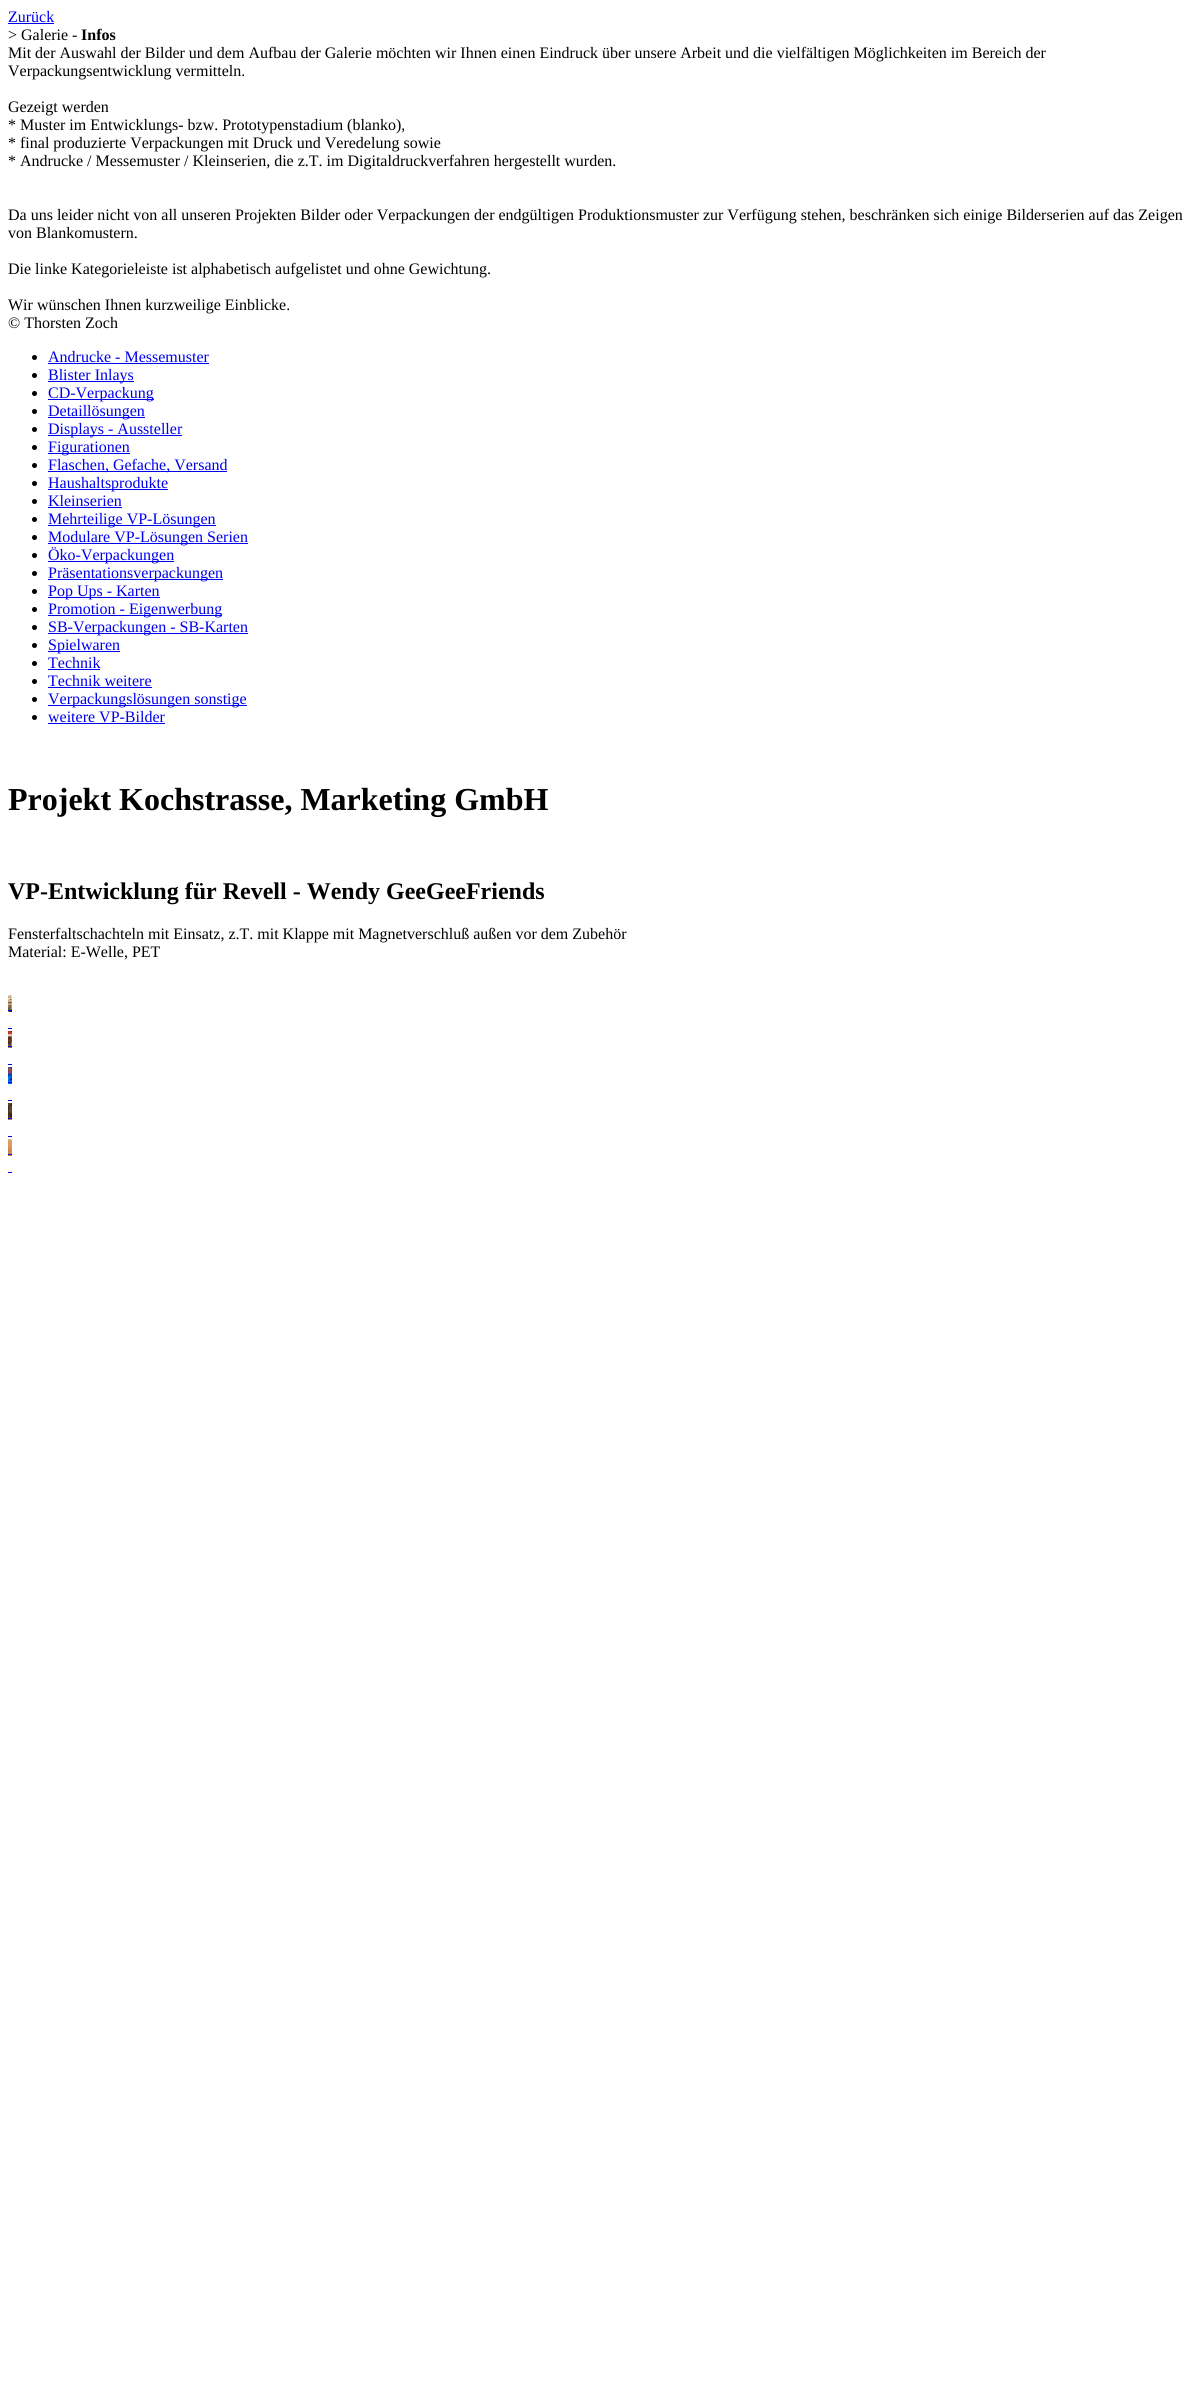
import math
import cairocffi as cairo

surface = cairo.ImageSurface(cairo.FORMAT_RGB24, 1193, 2406)
cr = cairo.Context(surface)
options = cairo.FontOptions()
options.set_hint_metrics(cairo.HINT_METRICS_OFF)
options.set_hint_style(cairo.HINT_STYLE_NONE)
cr.set_font_options(options)
cr.set_miter_limit(4)


def use_color(code):
    cr.set_source_rgb(*(v / 255 for v in bytes.fromhex(code[-6:])))


def picture(path, x, y, w, h):
    cr.save()
    cr.set_source_surface(cairo.ImageSurface.create_from_png(path), x, y)
    cr.rectangle(x, y, w, h)
    cr.fill()
    cr.restore()


use_color("#ffffff")
cr.paint()
cr.select_font_face("Liberation Serif")
cr.set_font_size(16)
use_color("#0000ee")
cr.move_to(8, 22)
cr.show_text("Zurück")
cr.rectangle(8, 23, 46, 1)
cr.fill()
use_color("#000000")
cr.move_to(8, 40)
cr.show_text("> Galerie -")
cr.select_font_face("Liberation Serif", cairo.FONT_SLANT_NORMAL, cairo.FONT_WEIGHT_BOLD)
cr.move_to(81, 40)
cr.show_text("Infos")
cr.select_font_face("Liberation Serif")
cr.move_to(8, 58)
cr.show_text("Mit der Auswahl der Bilder und dem Aufbau der Galerie möchten wir Ihnen einen Eindruck über unsere Arbeit und die vielfältigen Möglichkeiten im Bereich der")
cr.move_to(8, 76)
cr.show_text("Verpackungsentwicklung vermitteln.")
cr.move_to(8, 112)
cr.show_text("Gezeigt werden")
cr.move_to(8, 130)
cr.show_text("* Muster im Entwicklungs- bzw. Prototypenstadium (blanko),")
cr.move_to(8, 148)
cr.show_text("* final produzierte Verpackungen mit Druck und Veredelung sowie")
cr.move_to(8, 166)
cr.show_text("* Andrucke / Messemuster / Kleinserien, die z.T. im Digitaldruckverfahren hergestellt wurden.")
cr.move_to(8, 220)
cr.show_text("Da uns leider nicht von all unseren Projekten Bilder oder Verpackungen der endgültigen Produktionsmuster zur Verfügung stehen, beschränken sich einige Bilderserien auf das Zeigen")
cr.move_to(8, 238)
cr.show_text("von Blankomustern.")
cr.move_to(8, 274)
cr.show_text("Die linke Kategorieleiste ist alphabetisch aufgelistet und ohne Gewichtung.")
cr.move_to(8, 310)
cr.show_text("Wir wünschen Ihnen kurzweilige Einblicke.")
cr.move_to(8, 328)
cr.show_text("© Thorsten Zoch")
cr.new_path()
cr.arc(34.5, 357.5, 2.5, 0, 2 * math.pi)
cr.fill()
use_color("#0000ee")
cr.move_to(48, 362)
cr.show_text("Andrucke - Messemuster")
cr.rectangle(48, 363, 161, 1)
cr.fill()
use_color("#000000")
cr.arc(34.5, 375.5, 2.5, 0, 2 * math.pi)
cr.fill()
use_color("#0000ee")
cr.rectangle(48, 381, 86, 1)
cr.fill()
cr.move_to(48, 380)
cr.show_text("Blister Inlays")
use_color("#000000")
cr.new_path()
cr.arc(34.5, 393.5, 2.5, 0, 2 * math.pi)
cr.fill()
use_color("#0000ee")
cr.rectangle(48, 399, 106, 1)
cr.fill()
cr.move_to(48, 398)
cr.show_text("CD-Verpackung")
use_color("#000000")
cr.new_path()
cr.arc(34.5, 411.5, 2.5, 0, 2 * math.pi)
cr.fill()
use_color("#0000ee")
cr.rectangle(48, 417, 97, 1)
cr.fill()
cr.move_to(48, 416)
cr.show_text("Detaillösungen")
use_color("#000000")
cr.new_path()
cr.arc(34.5, 429.5, 2.5, 0, 2 * math.pi)
cr.fill()
use_color("#0000ee")
cr.rectangle(48, 435, 134, 1)
cr.fill()
cr.move_to(48, 434)
cr.show_text("Displays - Aussteller")
use_color("#000000")
cr.new_path()
cr.arc(34.5, 447.5, 2.5, 0, 2 * math.pi)
cr.fill()
use_color("#0000ee")
cr.rectangle(48, 453, 82, 1)
cr.fill()
cr.move_to(48, 452)
cr.show_text("Figurationen")
use_color("#000000")
cr.new_path()
cr.arc(34.5, 465.5, 2.5, 0, 2 * math.pi)
cr.fill()
use_color("#0000ee")
cr.rectangle(48, 471, 179, 1)
cr.fill()
cr.move_to(48, 470)
cr.show_text("Flaschen, Gefache, Versand")
use_color("#000000")
cr.new_path()
cr.arc(34.5, 483.5, 2.5, 0, 2 * math.pi)
cr.fill()
use_color("#0000ee")
cr.rectangle(48, 489, 120, 1)
cr.fill()
cr.move_to(48, 488)
cr.show_text("Haushaltsprodukte")
use_color("#000000")
cr.new_path()
cr.arc(34.5, 501.5, 2.5, 0, 2 * math.pi)
cr.fill()
use_color("#0000ee")
cr.move_to(48, 506)
cr.show_text("Kleinserien")
cr.rectangle(48, 507, 74, 1)
cr.fill()
use_color("#000000")
cr.arc(34.5, 519.5, 2.5, 0, 2 * math.pi)
cr.fill()
use_color("#0000ee")
cr.rectangle(48, 525, 168, 1)
cr.fill()
cr.move_to(48, 524)
cr.show_text("Mehrteilige VP-Lösungen")
use_color("#000000")
cr.new_path()
cr.arc(34.5, 537.5, 2.5, 0, 2 * math.pi)
cr.fill()
use_color("#0000ee")
cr.rectangle(48, 543, 200, 1)
cr.fill()
cr.move_to(48, 542)
cr.show_text("Modulare VP-Lösungen Serien")
use_color("#000000")
cr.new_path()
cr.arc(34.5, 555.5, 2.5, 0, 2 * math.pi)
cr.fill()
use_color("#0000ee")
cr.rectangle(48, 561, 126, 1)
cr.fill()
cr.move_to(48, 560)
cr.show_text("Öko-Verpackungen")
use_color("#000000")
cr.new_path()
cr.arc(34.5, 573.5, 2.5, 0, 2 * math.pi)
cr.fill()
use_color("#0000ee")
cr.rectangle(48, 579, 175, 1)
cr.fill()
cr.move_to(48, 578)
cr.show_text("Präsentationsverpackungen")
use_color("#000000")
cr.new_path()
cr.arc(34.5, 591.5, 2.5, 0, 2 * math.pi)
cr.fill()
use_color("#0000ee")
cr.rectangle(48, 597, 112, 1)
cr.fill()
cr.move_to(48, 596)
cr.show_text("Pop Ups - Karten")
use_color("#000000")
cr.new_path()
cr.arc(34.5, 609.5, 2.5, 0, 2 * math.pi)
cr.fill()
use_color("#0000ee")
cr.rectangle(48, 615, 174, 1)
cr.fill()
cr.move_to(48, 614)
cr.show_text("Promotion - Eigenwerbung")
use_color("#000000")
cr.new_path()
cr.arc(34.5, 627.5, 2.5, 0, 2 * math.pi)
cr.fill()
use_color("#0000ee")
cr.rectangle(48, 633, 200, 1)
cr.fill()
cr.move_to(48, 632)
cr.show_text("SB-Verpackungen - SB-Karten")
use_color("#000000")
cr.new_path()
cr.arc(34.5, 645.5, 2.5, 0, 2 * math.pi)
cr.fill()
use_color("#0000ee")
cr.rectangle(48, 651, 72, 1)
cr.fill()
cr.move_to(48, 650)
cr.show_text("Spielwaren")
use_color("#000000")
cr.new_path()
cr.arc(34.5, 663.5, 2.5, 0, 2 * math.pi)
cr.fill()
use_color("#0000ee")
cr.move_to(48, 668)
cr.show_text("Technik")
cr.rectangle(48, 669, 52, 1)
cr.fill()
use_color("#000000")
cr.arc(34.5, 681.5, 2.5, 0, 2 * math.pi)
cr.fill()
use_color("#0000ee")
cr.move_to(48, 686)
cr.show_text("Technik weitere")
cr.rectangle(48, 687, 104, 1)
cr.fill()
use_color("#000000")
cr.arc(34.5, 699.5, 2.5, 0, 2 * math.pi)
cr.fill()
use_color("#0000ee")
cr.rectangle(48, 705, 199, 1)
cr.fill()
cr.move_to(48, 704)
cr.show_text("Verpackungslösungen sonstige")
use_color("#000000")
cr.new_path()
cr.arc(34.5, 717.5, 2.5, 0, 2 * math.pi)
cr.fill()
use_color("#0000ee")
cr.move_to(48, 722)
cr.show_text("weitere VP-Bilder")
cr.rectangle(48, 723, 117, 1)
cr.fill()
cr.select_font_face("Liberation Serif", cairo.FONT_SLANT_NORMAL, cairo.FONT_WEIGHT_BOLD)
cr.set_font_size(32)
use_color("#000000")
cr.move_to(8, 810)
cr.show_text("Projekt Kochstrasse, Marketing GmbH")
cr.set_font_size(24)
cr.move_to(8, 899)
cr.show_text("VP-Entwicklung für Revell - Wendy GeeGeeFriends")
cr.select_font_face("Liberation Serif")
cr.set_font_size(16)
cr.move_to(8, 939)
cr.show_text("Fensterfaltschachteln mit Einsatz, z.T. mit Klappe mit Magnetverschluß außen vor dem Zubehör")
cr.move_to(8, 957)
cr.show_text("Material: E-Welle, PET")
picture("img1.png", 8, 995, 4, 17)
use_color("#0000ee")
cr.rectangle(8, 1010, 4, 1)
cr.fill()
cr.rectangle(8, 1028, 4, 1)
cr.fill()
picture("img2.png", 8, 1031, 4, 17)
cr.rectangle(8, 1046, 4, 1)
cr.fill()
cr.rectangle(8, 1064, 4, 1)
cr.fill()
picture("img3.png", 8, 1067, 4, 17)
cr.rectangle(8, 1082, 4, 1)
cr.fill()
cr.rectangle(8, 1100, 4, 1)
cr.fill()
picture("img4.png", 8, 1103, 4, 17)
cr.rectangle(8, 1118, 4, 1)
cr.fill()
cr.rectangle(8, 1136, 4, 1)
cr.fill()
picture("img5.png", 8, 1139, 4, 17)
cr.rectangle(8, 1154, 4, 1)
cr.fill()
cr.rectangle(8, 1172, 4, 1)
cr.fill()
surface.write_to_png("result.png")
